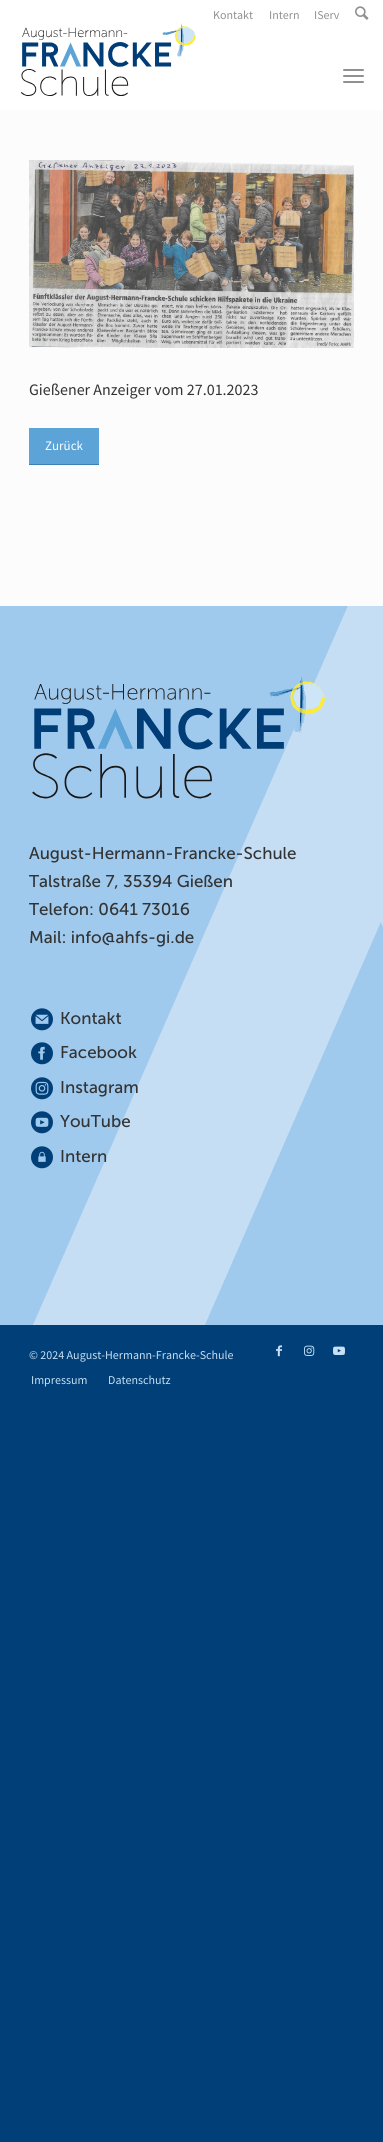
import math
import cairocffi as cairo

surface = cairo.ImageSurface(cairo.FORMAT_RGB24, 383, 2142)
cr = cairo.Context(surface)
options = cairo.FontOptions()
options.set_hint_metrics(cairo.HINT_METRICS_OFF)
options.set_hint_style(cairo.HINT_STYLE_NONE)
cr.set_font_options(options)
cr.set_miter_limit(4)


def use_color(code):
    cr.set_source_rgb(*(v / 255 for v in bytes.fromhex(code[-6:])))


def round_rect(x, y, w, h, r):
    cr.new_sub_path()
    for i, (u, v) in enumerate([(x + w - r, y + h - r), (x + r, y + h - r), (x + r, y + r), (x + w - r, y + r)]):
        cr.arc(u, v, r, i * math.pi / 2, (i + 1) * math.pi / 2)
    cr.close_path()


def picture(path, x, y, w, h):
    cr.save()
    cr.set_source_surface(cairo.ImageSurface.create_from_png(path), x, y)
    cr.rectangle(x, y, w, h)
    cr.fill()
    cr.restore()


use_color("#003f77")
cr.paint()
use_color("#ffffff")
cr.rectangle(0, 0, 383, 110)
cr.fill()
cr.select_font_face("Source Sans Pro")
cr.set_font_size(12)
use_color("#919191")
cr.move_to(213, 19)
cr.show_text("Kontakt")
cr.move_to(269, 19)
cr.show_text("Intern")
cr.move_to(314, 19)
cr.show_text("IServ")
picture("img1.png", 355, 6, 14, 14)
picture("img2.png", 20, 23, 176, 73)
round_rect(343, 75, 21, 2, 1)
cr.fill()
round_rect(343, 69, 21, 2, 1)
cr.fill()
round_rect(343, 81, 21, 2, 1)
cr.fill()
use_color("#fcfcfc")
cr.rectangle(0, 110, 383, 496)
cr.fill()
picture("img3.png", 29, 160, 325, 188)
cr.set_font_size(16)
use_color("#333333")
cr.move_to(29, 395)
cr.show_text("Gießener Anzeiger vom 27.01.2023")
use_color("#5ca4d7")
cr.rectangle(29, 428, 70, 36)
cr.fill()
use_color("#3a82b5")
cr.rectangle(29, 464, 70, 1)
cr.fill()
cr.set_font_size(13)
use_color("#ffffff")
cr.move_to(45, 450)
cr.show_text("Zurück")
use_color("#9fc9ed")
cr.rectangle(0, 606, 383, 719)
cr.fill()
picture("img4.png", 33, 606, 350, 719)
picture("img5.png", 32, 677, 293, 122)
cr.select_font_face("Museo Sans")
cr.set_font_size(17)
use_color("#333333")
cr.move_to(29, 859)
cr.show_text("August-Hermann-Francke-Schule")
cr.move_to(29, 887)
cr.show_text("Talstraße 7, 35394 Gießen")
cr.move_to(29, 915)
cr.show_text("Telefon: 0641 73016")
cr.move_to(29, 943)
cr.show_text("Mail: info@ahfs-gi.de")
picture("img6.png", 31, 1008, 22, 23)
cr.move_to(60, 1024)
cr.show_text("Kontakt")
picture("img7.png", 31, 1042, 22, 23)
cr.move_to(60, 1058)
cr.show_text("Facebook")
picture("img8.png", 31, 1077, 22, 23)
cr.move_to(60, 1093)
cr.show_text("Instagram")
picture("img9.png", 31, 1111, 22, 23)
cr.move_to(60, 1127)
cr.show_text("YouTube")
picture("img10.png", 31, 1146, 22, 23)
cr.move_to(60, 1162)
cr.show_text("Intern")
cr.select_font_face("Source Sans Pro")
cr.set_font_size(12)
use_color("#c7e0f5")
cr.move_to(29, 1359)
cr.show_text("© 2024 August-Hermann-Francke-Schule")
picture("img11.png", 276, 1345, 6, 12)
picture("img12.png", 304, 1345, 11, 11)
picture("img13.png", 333, 1346, 12, 9)
cr.move_to(31, 1384)
cr.show_text("Impressum")
cr.move_to(108, 1384)
cr.show_text("Datenschutz")
surface.write_to_png("result.png")
